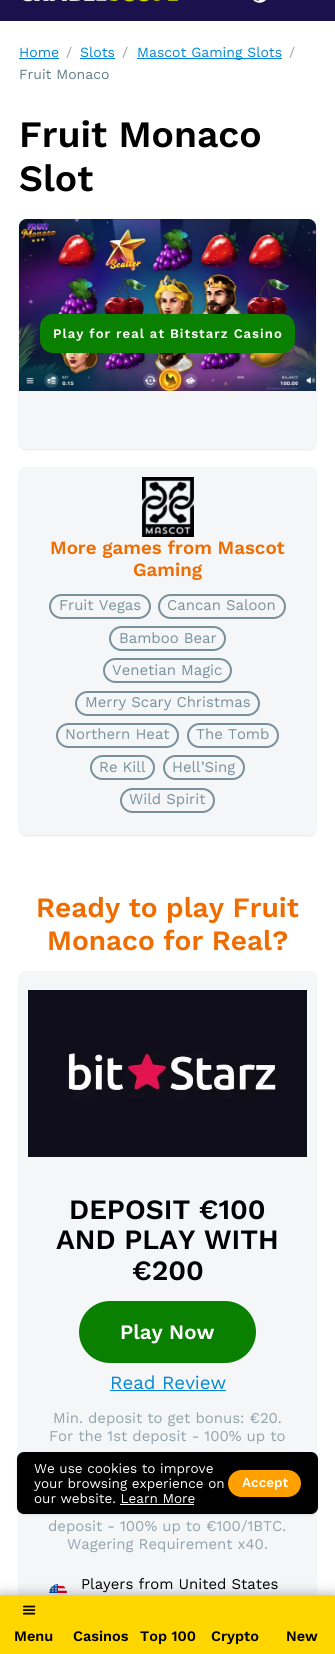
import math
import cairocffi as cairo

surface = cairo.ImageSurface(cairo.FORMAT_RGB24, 335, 1654)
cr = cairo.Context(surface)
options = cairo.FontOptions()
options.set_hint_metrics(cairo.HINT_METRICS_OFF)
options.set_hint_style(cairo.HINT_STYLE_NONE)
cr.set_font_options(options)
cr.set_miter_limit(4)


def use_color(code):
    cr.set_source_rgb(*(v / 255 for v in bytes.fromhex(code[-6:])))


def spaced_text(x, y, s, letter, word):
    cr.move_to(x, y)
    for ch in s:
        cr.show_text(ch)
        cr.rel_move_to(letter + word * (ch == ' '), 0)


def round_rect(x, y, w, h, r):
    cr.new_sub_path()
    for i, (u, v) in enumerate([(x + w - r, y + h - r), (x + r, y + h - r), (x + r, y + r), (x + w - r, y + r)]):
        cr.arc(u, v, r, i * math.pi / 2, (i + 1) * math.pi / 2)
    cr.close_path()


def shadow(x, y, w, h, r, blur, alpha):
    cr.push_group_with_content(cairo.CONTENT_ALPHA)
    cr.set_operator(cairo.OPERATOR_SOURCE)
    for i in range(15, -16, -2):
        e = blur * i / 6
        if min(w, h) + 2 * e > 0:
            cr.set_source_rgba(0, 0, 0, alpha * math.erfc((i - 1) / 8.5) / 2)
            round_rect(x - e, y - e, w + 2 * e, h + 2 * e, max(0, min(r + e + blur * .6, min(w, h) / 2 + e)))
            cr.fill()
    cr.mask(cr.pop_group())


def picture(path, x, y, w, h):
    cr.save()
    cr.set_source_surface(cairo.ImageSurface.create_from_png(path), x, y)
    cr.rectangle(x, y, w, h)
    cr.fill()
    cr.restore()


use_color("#ffffff")
cr.paint()
cr.select_font_face("Work Sans")
cr.set_font_size(14)
use_color("#0288d1")
cr.move_to(19, 57)
cr.show_text("Home")
cr.rectangle(19, 58, 40, 1)
cr.fill()
use_color("#9e9e9e")
cr.move_to(66, 57)
cr.show_text("/")
use_color("#0288d1")
cr.move_to(80, 57)
cr.show_text("Slots")
cr.rectangle(80, 58, 35, 1)
cr.fill()
use_color("#9e9e9e")
cr.move_to(122, 57)
cr.show_text("/")
use_color("#0288d1")
cr.rectangle(137, 58, 145, 1)
cr.fill()
cr.move_to(137, 57)
cr.show_text("Mascot Gaming Slots")
use_color("#9e9e9e")
cr.move_to(289, 57)
cr.show_text("/")
use_color("#607d8b")
cr.move_to(19, 79)
cr.show_text("Fruit Monaco")
cr.select_font_face("Work Sans SemiBold")
cr.set_font_size(37.25)
use_color("#000000")
cr.move_to(19, 147)
cr.show_text("Fruit Monaco")
cr.move_to(19, 191)
cr.show_text("Slot")
use_color("#000000")
shadow(19, 220, 297, 230, 7, 1, 0.1)
use_color("#f5f6f8")
round_rect(19, 219, 297, 230, 7)
cr.fill()
picture("img1.png", 19, 219, 297, 172)
use_color("#0a8001")
round_rect(40, 314, 255, 39, 13)
cr.fill()
cr.set_font_size(13.1)
use_color("#ffffff")
spaced_text(53, 338, "Play for real at Bitstarz Casino", 1, 0)
use_color("#000000")
shadow(19, 468, 297, 368, 7, 1, 0.1)
use_color("#f5f6f8")
round_rect(19, 467, 297, 368, 7)
cr.fill()
picture("img2.png", 142, 477, 52, 60)
cr.set_font_size(18.7)
use_color("#ef6c00")
cr.move_to(50, 554)
cr.show_text("More games from Mascot")
cr.move_to(133, 576)
cr.show_text("Gaming")
round_rect(50, 595, 100, 23, 11.5)
use_color("#78909c")
cr.stroke()
cr.select_font_face("Work Sans")
cr.set_font_size(14.9)
cr.move_to(59, 610)
cr.show_text("Fruit Vegas")
round_rect(159, 595, 126, 23, 11.5)
cr.stroke()
cr.move_to(167, 610)
cr.show_text("Cancan Saloon")
round_rect(110, 627, 115, 23, 11.5)
cr.stroke()
cr.move_to(119, 643)
cr.show_text("Bamboo Bear")
round_rect(104, 659, 127, 23, 11.5)
cr.stroke()
cr.move_to(112, 675)
cr.show_text("Venetian Magic")
round_rect(76, 692, 183, 23, 11.5)
cr.stroke()
cr.move_to(85, 707)
cr.show_text("Merry Scary Christmas")
round_rect(57, 724, 121, 23, 11.5)
cr.stroke()
cr.move_to(65, 739)
cr.show_text("Northern Heat")
round_rect(188, 724, 90, 23, 11.5)
cr.stroke()
cr.move_to(196, 739)
cr.show_text("The Tomb")
round_rect(91, 756, 63, 23, 11.5)
cr.stroke()
cr.move_to(99, 772)
cr.show_text("Re Kill")
round_rect(164, 756, 80, 23, 11.5)
cr.stroke()
cr.move_to(172, 772)
cr.show_text("Hell’Sing")
round_rect(121, 789, 93, 23, 11.5)
cr.stroke()
cr.move_to(129, 804)
cr.show_text("Wild Spirit")
cr.select_font_face("Work Sans SemiBold")
cr.set_font_size(28)
use_color("#ef6c00")
cr.move_to(36, 917)
cr.show_text("Ready to play Fruit")
cr.move_to(47, 950)
cr.show_text("Monaco for Real?")
use_color("#000000")
shadow(19, 972, 297, 655, 7, 1, 0.1)
use_color("#f5f6f8")
round_rect(19, 971, 297, 655, 7)
cr.fill()
picture("img3.png", 28, 990, 279, 167)
use_color("#000000")
cr.move_to(69, 1219)
cr.show_text("DEPOSIT €100")
cr.move_to(56, 1249)
cr.show_text("AND PLAY WITH")
cr.move_to(132, 1280)
cr.show_text("€200")
use_color("#0a8001")
round_rect(79, 1301, 177, 62, 31)
cr.fill()
cr.set_font_size(20.5)
use_color("#ffffff")
cr.move_to(120, 1339)
cr.show_text("Play Now")
cr.select_font_face("Work Sans")
cr.set_font_size(18.7)
use_color("#0288d1")
cr.move_to(110, 1389)
cr.show_text("Read Review")
cr.rectangle(110, 1390, 116, 1)
cr.fill()
cr.set_font_size(14.9)
use_color("#90a4ae")
cr.move_to(53, 1423)
cr.show_text("Min. deposit to get bonus: €20.")
cr.move_to(49, 1441)
cr.show_text("For the 1st deposit - 100% up to")
cr.move_to(48, 1531)
cr.show_text("deposit - 100% up to €100/1BTC.")
cr.move_to(67, 1549)
cr.show_text("Wagering Requirement x40.")
picture("img4.png", 49, 1584, 18, 11)
use_color("#000000")
cr.move_to(81, 1589)
cr.show_text("Players from United States")
use_color("#000000")
shadow(17, 1453, 301, 62, 7, 1, 0.1)
use_color("#000000")
round_rect(17, 1452, 301, 62, 7)
cr.fill()
cr.set_font_size(13.5)
use_color("#ffffff")
cr.move_to(34, 1473)
cr.show_text("We use cookies to improve")
cr.move_to(34, 1488)
cr.show_text("your browsing experience on")
cr.move_to(34, 1503)
cr.show_text("our website. Learn More")
cr.rectangle(120, 1504, 74, 1)
cr.fill()
use_color("#ffa000")
round_rect(228, 1470, 73, 27, 13.5)
cr.fill()
cr.select_font_face("Work Sans SemiBold")
use_color("#ffffff")
cr.move_to(242, 1487)
cr.show_text("Accept")
use_color("#1b114d")
cr.rectangle(0, 0, 335, 21)
cr.fill()
picture("img5.png", 23, 0, 155, 2)
picture("img6.png", 253, 0, 13, 3)
use_color("#000000")
shadow(0, 1592, 335, 59, 0, 5, 0.2)
use_color("#ffd600")
cr.rectangle(0, 1595, 335, 59)
cr.fill()
picture("img7.png", 22, 1605, 14, 10)
cr.set_font_size(14.5)
use_color("#000000")
cr.move_to(14, 1641)
cr.show_text("Menu")
cr.move_to(73, 1641)
cr.show_text("Casinos")
cr.move_to(140, 1641)
cr.show_text("Top 100")
cr.move_to(211, 1641)
cr.show_text("Crypto")
cr.move_to(286, 1641)
cr.show_text("New")
surface.write_to_png("result.png")
